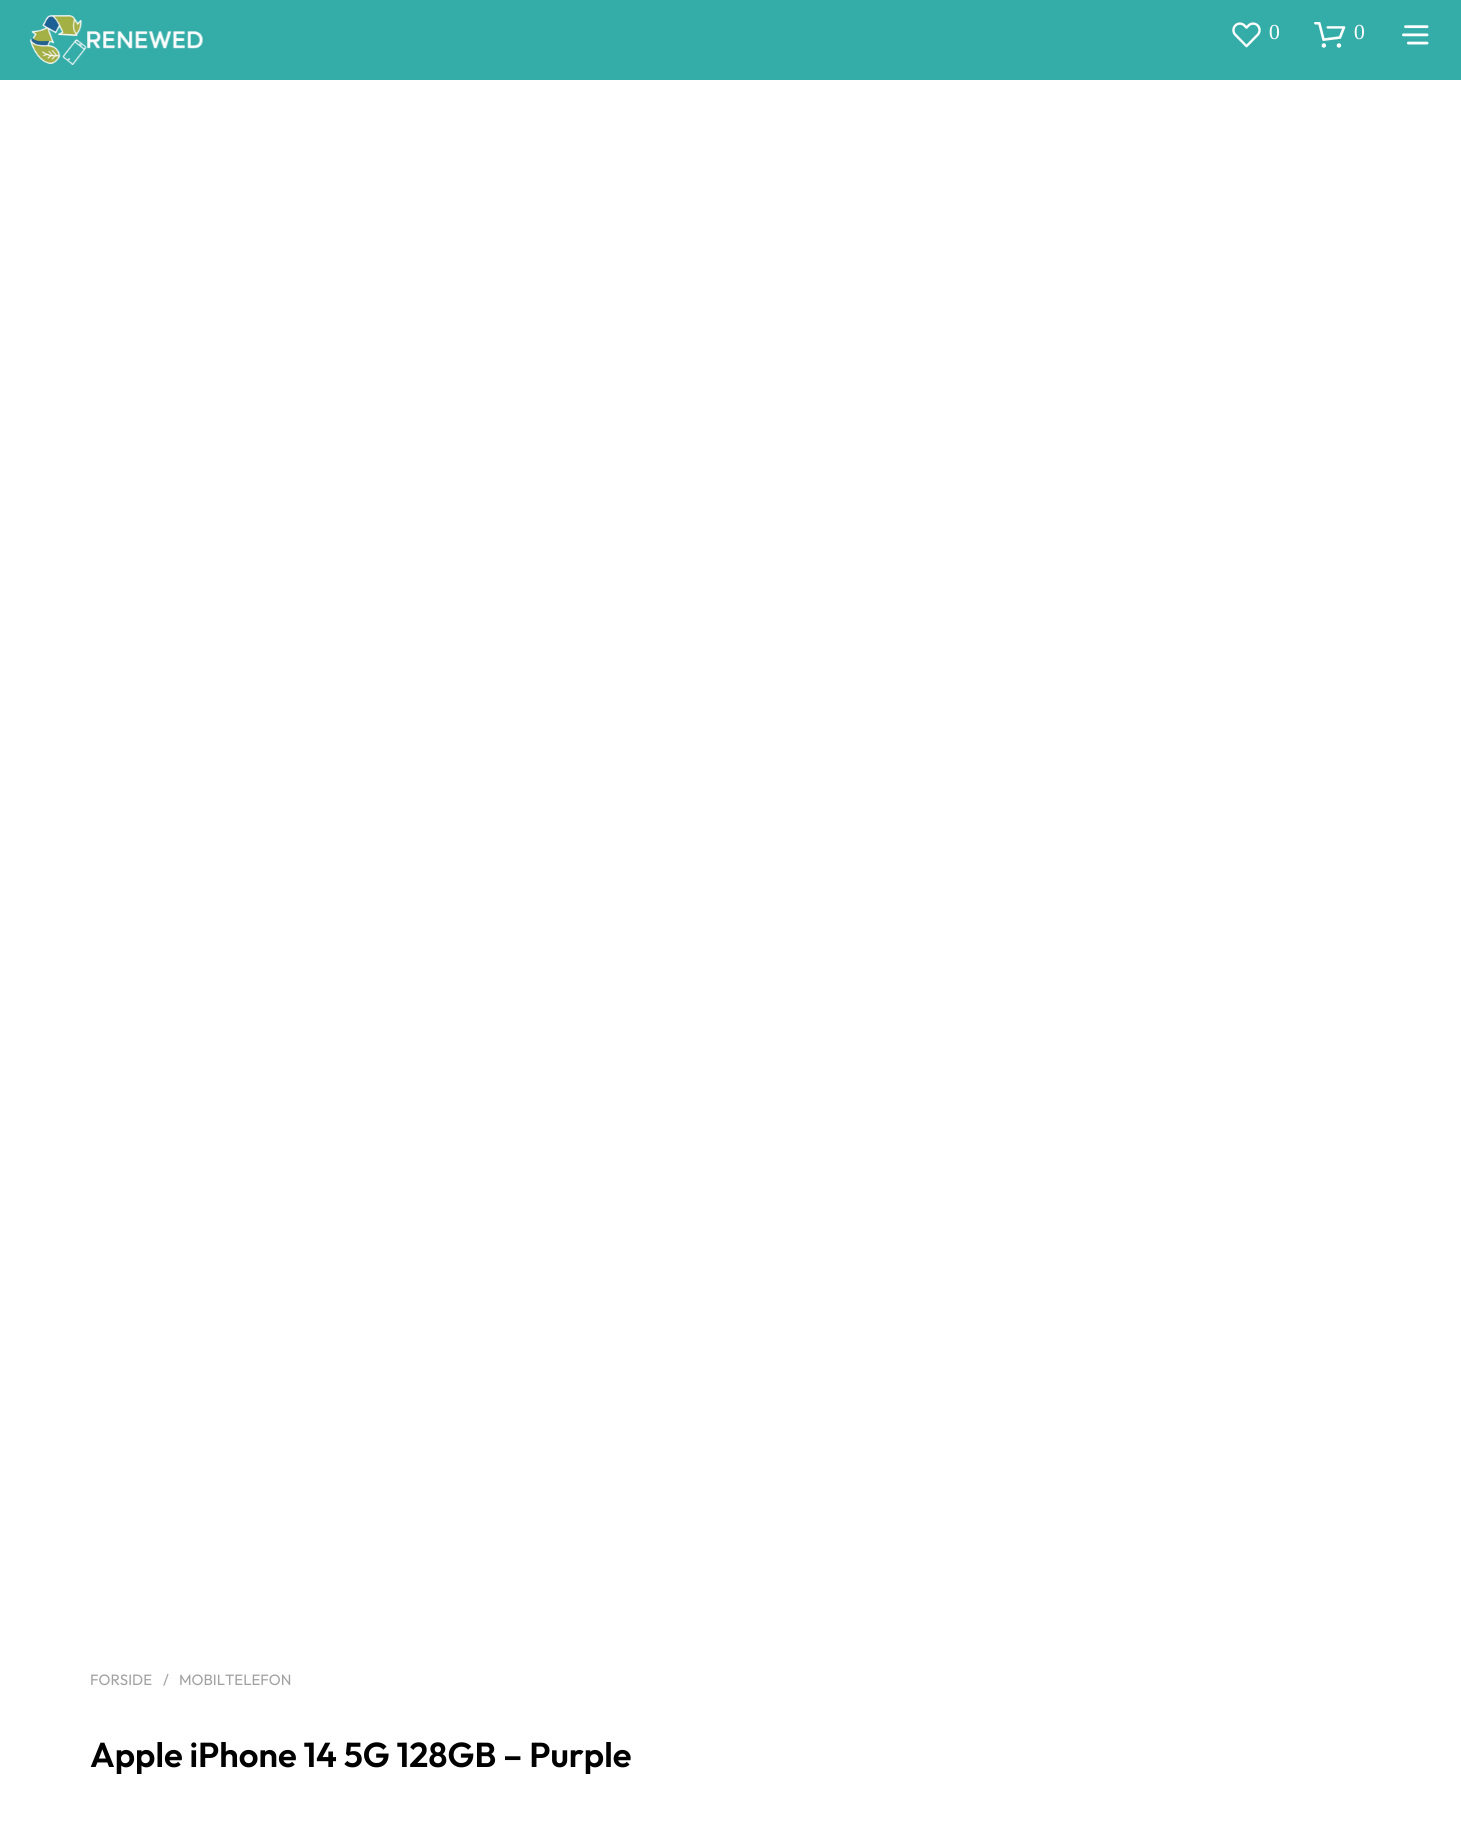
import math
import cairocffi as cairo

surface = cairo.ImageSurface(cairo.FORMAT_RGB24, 1461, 1841)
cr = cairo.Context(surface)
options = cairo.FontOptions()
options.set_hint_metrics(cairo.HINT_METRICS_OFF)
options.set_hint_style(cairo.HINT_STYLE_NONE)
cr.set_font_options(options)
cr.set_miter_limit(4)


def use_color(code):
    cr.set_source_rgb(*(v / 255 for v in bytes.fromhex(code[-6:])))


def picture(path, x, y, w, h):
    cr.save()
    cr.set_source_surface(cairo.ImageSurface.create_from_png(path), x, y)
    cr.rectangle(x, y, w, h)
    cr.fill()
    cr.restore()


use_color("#ffffff")
cr.paint()
use_color("#34ada9")
cr.rectangle(0, 0, 1461, 80)
cr.fill()
picture("img1.png", 30, 15, 173, 50)
picture("img2.png", 1232, 22, 29, 26)
cr.select_font_face("PT Serif")
cr.set_font_size(20)
use_color("#fefefe")
cr.move_to(1269, 39)
cr.show_text("0")
picture("img3.png", 1314, 22, 32, 26)
cr.move_to(1354, 39)
cr.show_text("0")
picture("img4.png", 1402, 25, 27, 20)
cr.select_font_face("Outfit")
cr.set_font_size(15)
use_color("#a1a1a1")
cr.move_to(90, 1685)
cr.show_text("FORSIDE")
cr.move_to(163, 1685)
cr.show_text("/")
cr.move_to(179, 1685)
cr.show_text("MOBILTELEFON")
cr.select_font_face("Outfit SemiBold")
cr.set_font_size(34.6)
use_color("#000000")
cr.move_to(90, 1767)
cr.show_text("Apple iPhone 14 5G 128GB – Purple")
surface.write_to_png("result.png")
